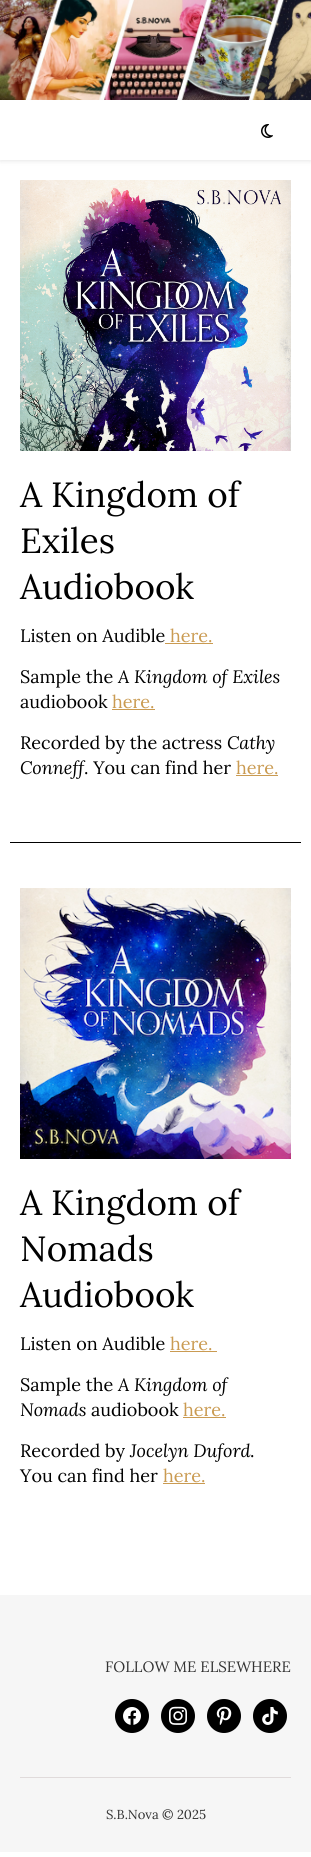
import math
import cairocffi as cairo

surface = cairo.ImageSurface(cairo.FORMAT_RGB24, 311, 1857)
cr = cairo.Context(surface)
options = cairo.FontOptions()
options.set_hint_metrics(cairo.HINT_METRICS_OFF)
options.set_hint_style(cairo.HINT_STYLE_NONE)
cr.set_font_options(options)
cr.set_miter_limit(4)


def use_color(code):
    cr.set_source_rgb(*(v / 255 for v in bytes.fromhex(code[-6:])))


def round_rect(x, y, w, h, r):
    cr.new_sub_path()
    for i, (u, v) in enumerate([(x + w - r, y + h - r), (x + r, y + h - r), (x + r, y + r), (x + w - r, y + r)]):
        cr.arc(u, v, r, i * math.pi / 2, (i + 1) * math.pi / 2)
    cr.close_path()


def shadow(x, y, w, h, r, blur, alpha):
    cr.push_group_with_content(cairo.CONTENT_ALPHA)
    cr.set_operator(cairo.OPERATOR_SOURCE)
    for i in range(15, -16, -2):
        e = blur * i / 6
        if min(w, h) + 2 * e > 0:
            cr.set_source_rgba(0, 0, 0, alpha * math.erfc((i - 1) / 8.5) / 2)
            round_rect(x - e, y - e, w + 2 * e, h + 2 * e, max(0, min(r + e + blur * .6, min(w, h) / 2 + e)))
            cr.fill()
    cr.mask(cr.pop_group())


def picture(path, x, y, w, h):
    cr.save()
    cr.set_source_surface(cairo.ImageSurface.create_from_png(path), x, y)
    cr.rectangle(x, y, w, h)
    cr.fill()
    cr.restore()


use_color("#ffffff")
cr.paint()
picture("img1.png", 0, 0, 311, 100)
cr.save()
cr.set_fill_rule(cairo.FILL_RULE_EVEN_ODD)
cr.new_path()
cr.move_to(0, 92)
cr.line_to(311, 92)
cr.line_to(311, 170)
cr.line_to(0, 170)
cr.close_path()
cr.move_to(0, 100)
cr.line_to(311, 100)
cr.line_to(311, 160)
cr.line_to(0, 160)
cr.close_path()
cr.clip()
use_color("#000000")
shadow(0, 101, 311, 60, 0, 2.5, 0.1)
cr.restore()
picture("img2.png", 261, 124, 12, 14)
picture("img3.png", 20, 180, 271, 271)
cr.select_font_face("Lora")
cr.set_font_size(35)
use_color("#000000")
cr.move_to(20, 507)
cr.show_text("A Kingdom of")
cr.move_to(20, 553)
cr.show_text("Exiles")
cr.move_to(20, 599)
cr.show_text("Audiobook")
cr.set_font_size(18)
cr.move_to(20, 642)
cr.show_text("Listen on Audible")
use_color("#ca9b52")
cr.rectangle(165, 643, 48, 1)
cr.fill()
cr.move_to(170, 642)
cr.show_text("here.")
use_color("#000000")
cr.move_to(20, 683)
cr.show_text("Sample the")
cr.select_font_face("Lora", cairo.FONT_SLANT_ITALIC)
cr.move_to(118, 683)
cr.show_text("A Kingdom of Exiles")
cr.select_font_face("Lora")
cr.move_to(20, 708)
cr.show_text("audiobook")
use_color("#ca9b52")
cr.move_to(112, 708)
cr.show_text("here.")
cr.rectangle(112, 709, 43, 1)
cr.fill()
use_color("#000000")
cr.move_to(20, 749)
cr.show_text("Recorded by the actress")
cr.select_font_face("Lora", cairo.FONT_SLANT_ITALIC)
cr.move_to(227, 749)
cr.show_text("Cathy")
cr.move_to(20, 774)
cr.show_text("Conneff")
cr.select_font_face("Lora")
cr.move_to(84, 774)
cr.show_text(". You can find her")
use_color("#ca9b52")
cr.move_to(236, 774)
cr.show_text("here.")
cr.rectangle(236, 775, 42, 1)
cr.fill()
use_color("#000000")
cr.rectangle(10, 842, 291, 1)
cr.fill()
picture("img4.png", 20, 888, 271, 271)
cr.set_font_size(35)
cr.move_to(20, 1215)
cr.show_text("A Kingdom of")
cr.move_to(20, 1261)
cr.show_text("Nomads")
cr.move_to(20, 1307)
cr.show_text("Audiobook")
cr.set_font_size(18)
cr.move_to(20, 1350)
cr.show_text("Listen on Audible")
use_color("#ca9b52")
cr.move_to(170, 1350)
cr.show_text("here.")
cr.rectangle(170, 1351, 47, 1)
cr.fill()
use_color("#000000")
cr.move_to(20, 1391)
cr.show_text("Sample the")
cr.select_font_face("Lora", cairo.FONT_SLANT_ITALIC)
cr.move_to(118, 1391)
cr.show_text("A Kingdom of")
cr.move_to(20, 1416)
cr.show_text("Nomads")
cr.select_font_face("Lora")
cr.move_to(91, 1416)
cr.show_text("audiobook")
use_color("#ca9b52")
cr.move_to(183, 1416)
cr.show_text("here.")
cr.rectangle(183, 1417, 43, 1)
cr.fill()
use_color("#000000")
cr.move_to(20, 1457)
cr.show_text("Recorded by")
cr.select_font_face("Lora", cairo.FONT_SLANT_ITALIC)
cr.move_to(130, 1457)
cr.show_text("Jocelyn Duford")
cr.select_font_face("Lora")
cr.move_to(250, 1457)
cr.show_text(".")
cr.move_to(20, 1482)
cr.show_text("You can find her")
use_color("#ca9b52")
cr.move_to(163, 1482)
cr.show_text("here.")
cr.rectangle(163, 1483, 42, 1)
cr.fill()
use_color("#f6f6f6")
cr.rectangle(0, 1595, 311, 257)
cr.fill()
use_color("#e0dbdb")
cr.rectangle(20, 1777, 271, 1)
cr.fill()
cr.set_font_size(15)
use_color("#333333")
cr.move_to(105, 1672)
cr.show_text("FOLLOW ME ELSEWHERE")
use_color("#000000")
cr.new_path()
cr.arc(132, 1716, 17, 0, 2 * math.pi)
cr.fill()
picture("img5.png", 123, 1707, 18, 18)
cr.arc(178, 1716, 17, 0, 2 * math.pi)
cr.fill()
picture("img6.png", 169, 1706, 18, 19)
cr.arc(224, 1716, 17, 0, 2 * math.pi)
cr.fill()
picture("img7.png", 216, 1706, 16, 19)
cr.arc(270, 1716, 17, 0, 2 * math.pi)
cr.fill()
picture("img8.png", 262, 1707, 16, 18)
cr.set_font_size(13)
use_color("#333333")
cr.move_to(106, 1819)
cr.show_text("S.B.Nova © 2025")
surface.write_to_png("result.png")
